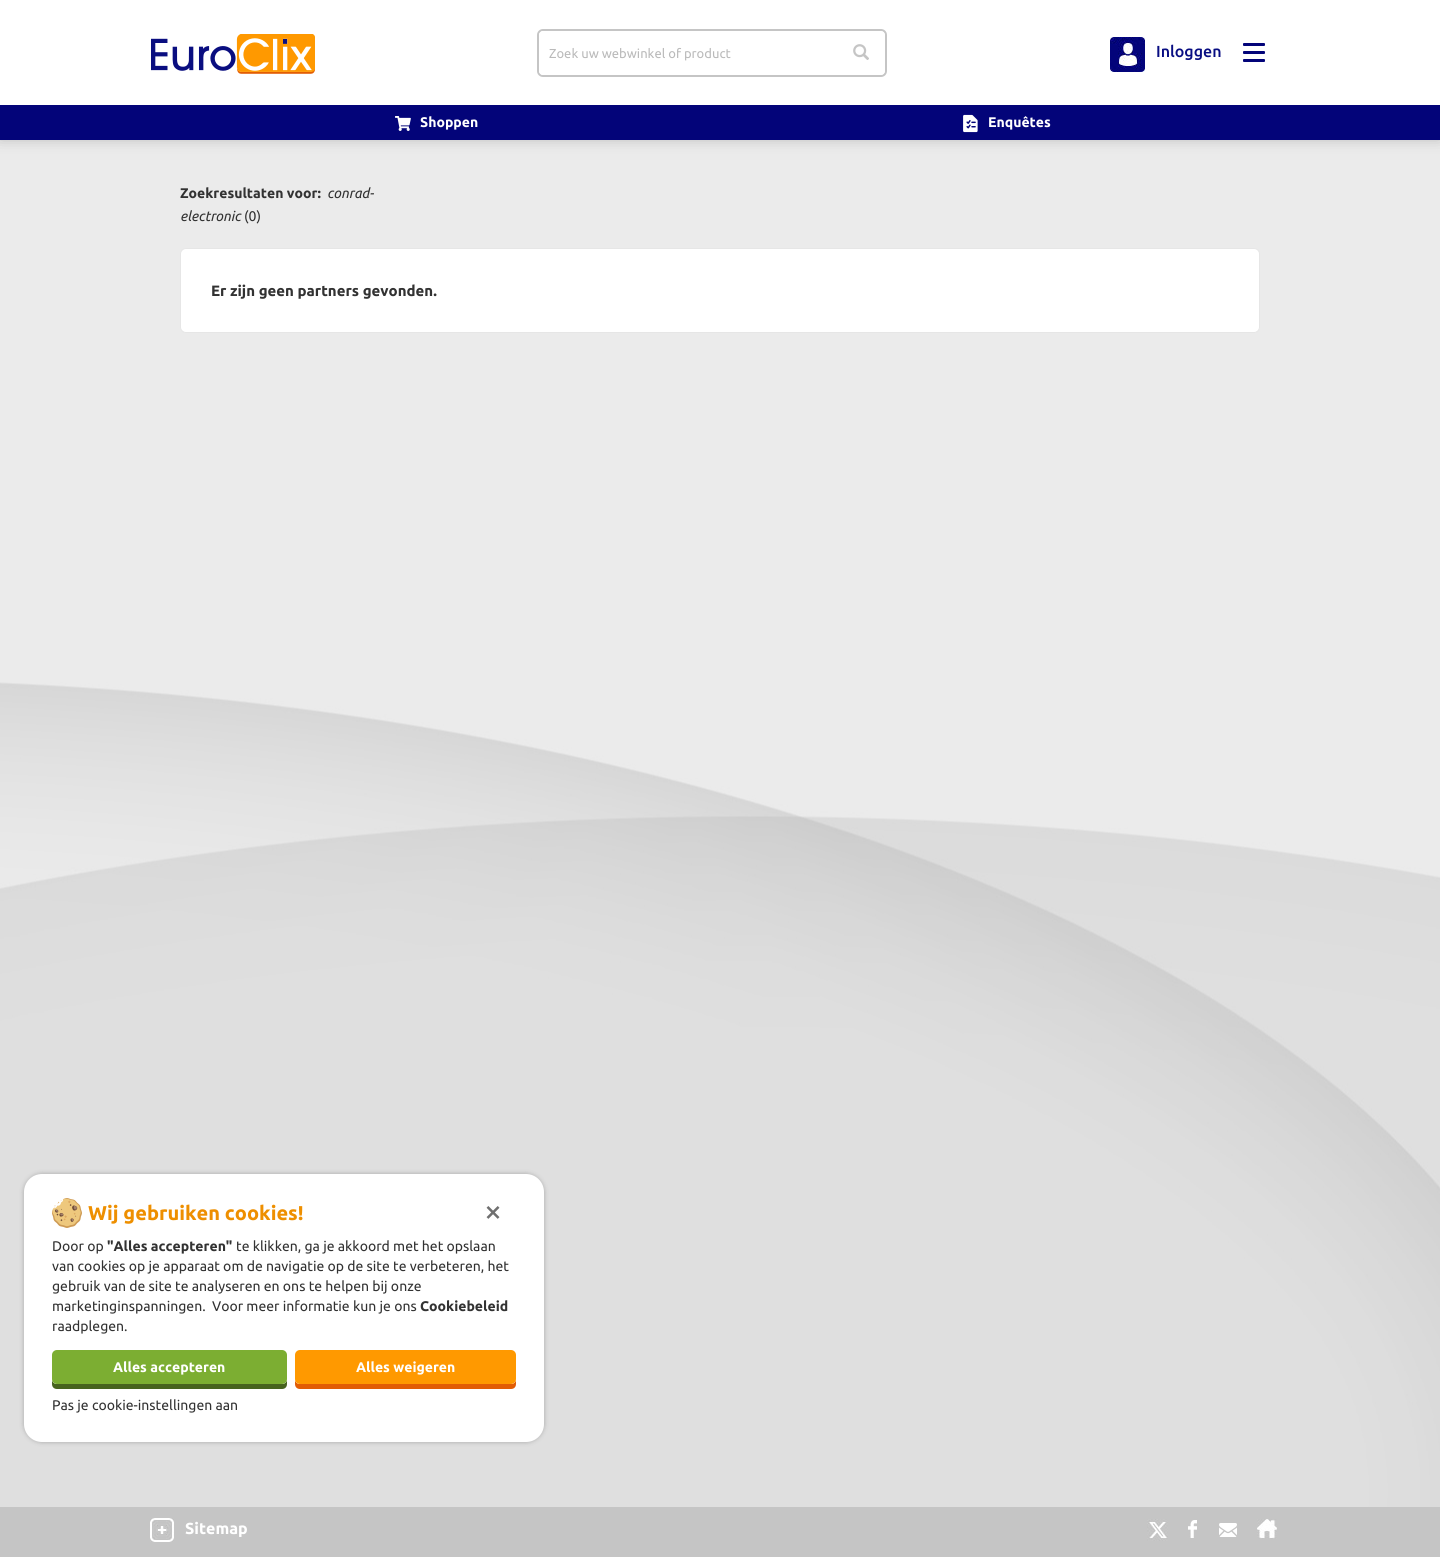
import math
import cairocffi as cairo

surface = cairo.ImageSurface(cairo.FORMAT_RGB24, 1440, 1557)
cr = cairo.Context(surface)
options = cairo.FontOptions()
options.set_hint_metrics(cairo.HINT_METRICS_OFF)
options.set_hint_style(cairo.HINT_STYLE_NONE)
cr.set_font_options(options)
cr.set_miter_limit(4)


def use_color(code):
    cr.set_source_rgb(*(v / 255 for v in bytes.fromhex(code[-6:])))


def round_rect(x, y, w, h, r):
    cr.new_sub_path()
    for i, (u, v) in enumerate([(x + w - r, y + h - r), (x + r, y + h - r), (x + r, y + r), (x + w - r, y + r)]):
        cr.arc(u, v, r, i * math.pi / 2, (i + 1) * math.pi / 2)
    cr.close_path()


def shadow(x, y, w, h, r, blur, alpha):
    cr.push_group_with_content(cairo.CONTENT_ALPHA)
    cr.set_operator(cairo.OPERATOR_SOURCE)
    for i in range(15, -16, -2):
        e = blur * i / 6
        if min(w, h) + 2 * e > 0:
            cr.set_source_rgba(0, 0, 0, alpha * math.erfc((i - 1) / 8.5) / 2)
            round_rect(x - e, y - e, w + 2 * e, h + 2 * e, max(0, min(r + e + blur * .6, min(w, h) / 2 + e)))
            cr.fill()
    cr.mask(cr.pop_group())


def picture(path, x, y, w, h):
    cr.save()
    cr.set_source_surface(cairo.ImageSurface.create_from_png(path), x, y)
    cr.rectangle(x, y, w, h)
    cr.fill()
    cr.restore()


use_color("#ebebeb")
cr.paint()
use_color("#323232")
shadow(0, -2, 1440, 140, 0, 7.5, 0.3)
use_color("#ffffff")
cr.rectangle(0, 0, 1440, 105)
cr.fill()
picture("img1.png", 151, 34, 164, 40)
round_rect(538, 30, 348, 46, 5)
use_color("#c5c5c5")
cr.stroke()
use_color("#ffffff")
cr.new_path()
cr.move_to(543, 31)
cr.line_to(841, 31)
cr.line_to(841, 75)
cr.line_to(543, 75)
cr.curve_to(541, 75, 539, 73, 539, 71)
cr.line_to(539, 35)
cr.curve_to(539, 33, 541, 31, 543, 31)
cr.close_path()
cr.fill()
cr.select_font_face("Ubuntu")
cr.set_font_size(13)
use_color("#bababa")
cr.move_to(549, 58)
cr.show_text("Zoek uw webwinkel of product")
use_color("#ffffff")
cr.new_path()
cr.move_to(841, 31)
cr.line_to(880, 31)
cr.curve_to(883, 31, 885, 33, 885, 36)
cr.line_to(885, 70)
cr.curve_to(885, 73, 883, 75, 880, 75)
cr.line_to(841, 75)
cr.close_path()
cr.fill()
picture("img2.png", 853, 44, 16, 16)
picture("img3.png", 1110, 37, 35, 35)
cr.select_font_face("Ubuntu Medium")
cr.set_font_size(16)
use_color("#080d82")
cr.move_to(1156, 57)
cr.show_text("Inloggen")
use_color("#030479")
round_rect(1243, 43, 22, 3, 1)
cr.fill()
round_rect(1243, 51, 22, 3, 1)
cr.fill()
round_rect(1243, 59, 22, 3, 1)
cr.fill()
cr.rectangle(0, 105, 1440, 35)
cr.fill()
picture("img4.png", 395, 116, 16, 15)
cr.select_font_face("Ubuntu", cairo.FONT_SLANT_NORMAL, cairo.FONT_WEIGHT_BOLD)
cr.set_font_size(14)
use_color("#ffffff")
cr.move_to(420, 127)
cr.show_text("Shoppen")
picture("img5.png", 963, 114, 15, 19)
cr.move_to(988, 127)
cr.show_text("Enquêtes")
picture("img6.png", 0, 682, 1440, 825)
use_color("#323232")
cr.move_to(180, 198)
cr.show_text("Zoekresultaten voor:")
cr.select_font_face("Ubuntu", cairo.FONT_SLANT_ITALIC)
cr.move_to(327, 198)
cr.show_text("conrad-")
cr.move_to(180, 221)
cr.show_text("electronic")
cr.select_font_face("Ubuntu")
cr.move_to(244, 221)
cr.show_text("(0)")
use_color("#ffffff")
round_rect(180.5, 248.5, 1079, 84, 5.5)
cr.fill_preserve()
use_color("#e6e6e6")
cr.set_line_width(1)
cr.stroke()
cr.select_font_face("Ubuntu", cairo.FONT_SLANT_NORMAL, cairo.FONT_WEIGHT_BOLD)
cr.set_font_size(15)
use_color("#323232")
cr.move_to(211, 296)
cr.show_text("Er zijn geen partners gevonden.")
use_color("#000000")
shadow(24, 1174, 520, 268, 18, 2.5, 0.25)
use_color("#ffffff")
round_rect(24, 1174, 520, 268, 18)
cr.fill()
picture("img7.png", 52, 1198, 30, 30)
cr.set_font_size(20)
use_color("#ee8f00")
cr.move_to(88, 1220)
cr.show_text("Wij gebruiken cookies!")
cr.select_font_face("Ubuntu")
cr.set_font_size(32)
use_color("#6f6f6f")
cr.move_to(484, 1222)
cr.show_text("×")
cr.set_font_size(14)
use_color("#323232")
cr.move_to(52, 1251)
cr.show_text("Door op")
cr.select_font_face("Ubuntu", cairo.FONT_SLANT_NORMAL, cairo.FONT_WEIGHT_BOLD)
cr.move_to(107, 1251)
cr.show_text("\"Alles accepteren\"")
cr.select_font_face("Ubuntu")
cr.move_to(236, 1251)
cr.show_text("te klikken, ga je akkoord met het opslaan")
cr.move_to(52, 1271)
cr.show_text("van cookies op je apparaat om de navigatie op de site te verbeteren, het")
cr.move_to(52, 1291)
cr.show_text("gebruik van de site te analyseren en ons te helpen bij onze")
cr.move_to(52, 1311)
cr.show_text("marketinginspanningen.")
cr.move_to(212, 1311)
cr.show_text("Voor meer informatie kun je ons")
cr.select_font_face("Ubuntu", cairo.FONT_SLANT_NORMAL, cairo.FONT_WEIGHT_BOLD)
cr.move_to(420, 1311)
cr.show_text("Cookiebeleid")
cr.select_font_face("Ubuntu")
cr.move_to(52, 1331)
cr.show_text("raadplegen.")
use_color("#47631e")
cr.new_path()
cr.move_to(52, 1379)
cr.line_to(52, 1384)
cr.curve_to(52, 1387, 54, 1389, 57, 1389)
cr.line_to(282, 1389)
cr.curve_to(285, 1389, 287, 1387, 287, 1384)
cr.line_to(287, 1379)
cr.curve_to(287, 1382, 285, 1384, 282, 1384)
cr.line_to(57, 1384)
cr.curve_to(54, 1384, 52, 1382, 52, 1379)
cr.close_path()
cr.fill()
use_color("#7cae32")
round_rect(52, 1350, 235, 34, 5)
cr.fill()
cr.select_font_face("Ubuntu", cairo.FONT_SLANT_NORMAL, cairo.FONT_WEIGHT_BOLD)
use_color("#ffffff")
cr.move_to(113, 1372)
cr.show_text("Alles accepteren")
use_color("#e25d04")
cr.new_path()
cr.move_to(295, 1379)
cr.line_to(295, 1384)
cr.curve_to(295, 1387, 297, 1389, 300, 1389)
cr.line_to(511, 1389)
cr.curve_to(514, 1389, 516, 1387, 516, 1384)
cr.line_to(516, 1379)
cr.curve_to(516, 1382, 514, 1384, 511, 1384)
cr.line_to(300, 1384)
cr.curve_to(297, 1384, 295, 1382, 295, 1379)
cr.close_path()
cr.fill()
use_color("#ff9900")
round_rect(295, 1350, 221, 34, 5)
cr.fill()
use_color("#ffffff")
cr.move_to(356, 1372)
cr.show_text("Alles weigeren")
cr.select_font_face("Ubuntu")
use_color("#323232")
cr.move_to(52, 1410)
cr.show_text("Pas je cookie-instellingen aan")
use_color("#c5c5c5")
cr.rectangle(0, 1507, 1440, 50)
cr.fill()
picture("img8.png", 150, 1518, 24, 24)
cr.select_font_face("Ubuntu", cairo.FONT_SLANT_NORMAL, cairo.FONT_WEIGHT_BOLD)
cr.set_font_size(16)
use_color("#ffffff")
cr.move_to(185, 1534)
cr.show_text("Sitemap")
picture("img9.png", 1147, 1519, 21, 22)
picture("img10.png", 1188, 1520, 9, 18)
picture("img11.png", 1219, 1523, 18, 14)
picture("img12.png", 1257, 1519, 20, 20)
surface.write_to_png("result.png")
